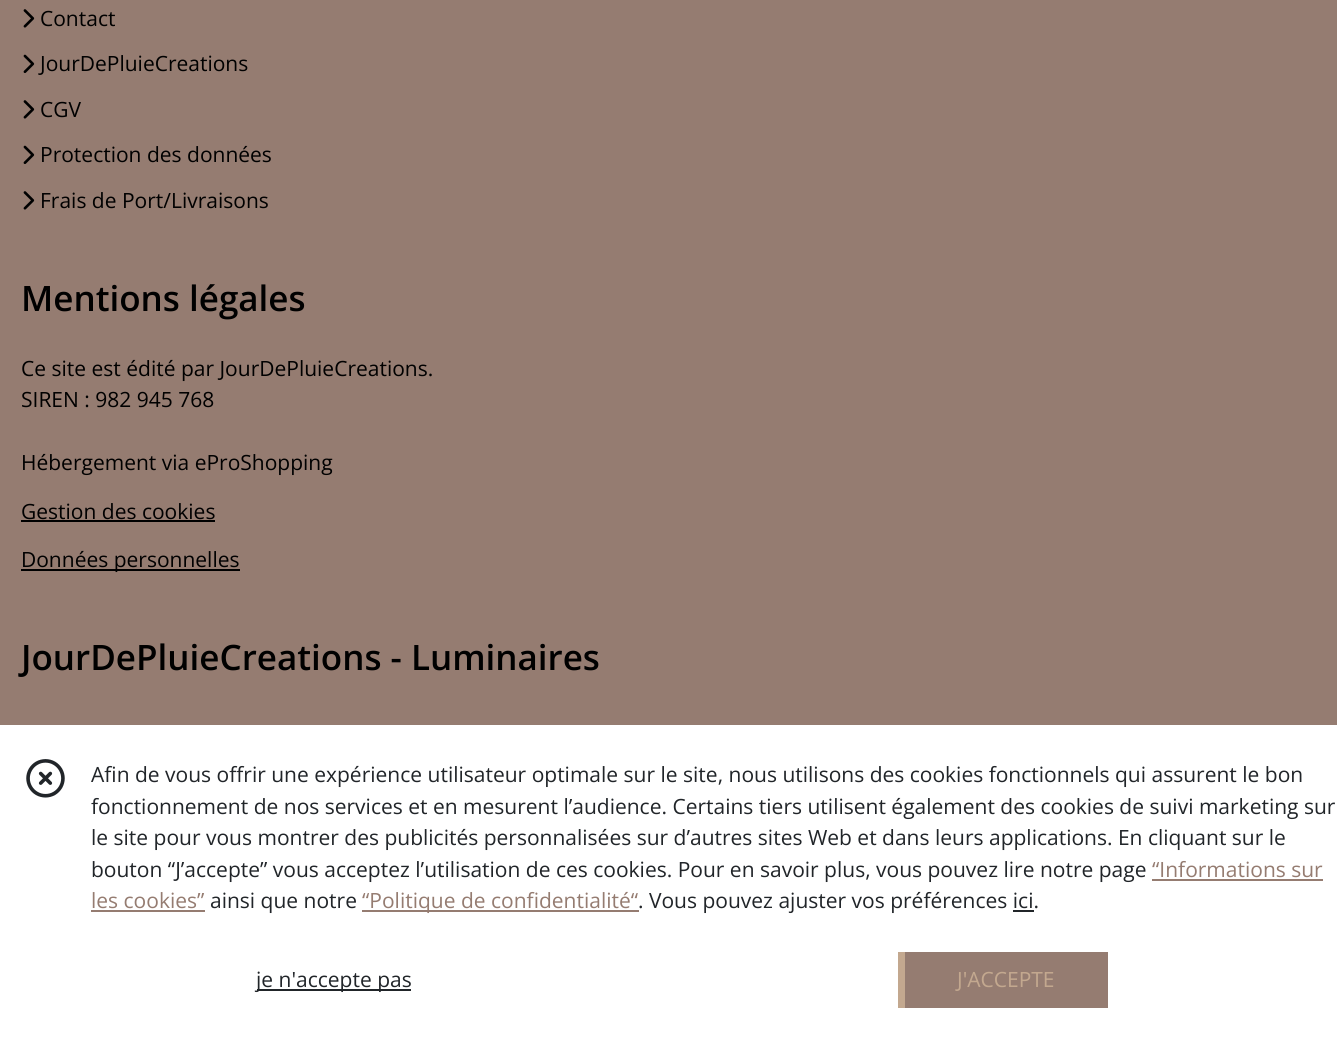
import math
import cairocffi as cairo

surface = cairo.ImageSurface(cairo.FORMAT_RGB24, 1337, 1042)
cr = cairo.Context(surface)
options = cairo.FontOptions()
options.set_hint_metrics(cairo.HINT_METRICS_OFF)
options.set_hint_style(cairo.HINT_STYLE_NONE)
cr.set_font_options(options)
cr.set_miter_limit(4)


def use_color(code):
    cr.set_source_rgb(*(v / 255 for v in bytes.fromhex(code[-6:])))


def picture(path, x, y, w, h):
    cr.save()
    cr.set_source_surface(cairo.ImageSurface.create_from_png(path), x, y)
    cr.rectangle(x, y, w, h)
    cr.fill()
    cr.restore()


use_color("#957c71")
cr.paint()
picture("img1.png", 23, 9, 12, 19)
cr.select_font_face("Open Sans")
cr.set_font_size(21)
use_color("#000000")
cr.move_to(40, 26)
cr.show_text("Contact")
picture("img2.png", 23, 54, 12, 19)
cr.move_to(40, 71)
cr.show_text("JourDePluieCreations")
picture("img1.png", 23, 100, 12, 19)
cr.move_to(40, 117)
cr.show_text("CGV")
picture("img2.png", 23, 145, 12, 19)
cr.move_to(40, 162)
cr.show_text("Protection des données")
picture("img1.png", 23, 191, 12, 19)
cr.move_to(40, 208)
cr.show_text("Frais de Port/Livraisons")
cr.select_font_face("Open Sans SemiBold")
cr.set_font_size(35)
cr.move_to(21, 311)
cr.show_text("Mentions légales")
cr.select_font_face("Open Sans")
cr.set_font_size(21)
cr.move_to(21, 376)
cr.show_text("Ce site est édité par JourDePluieCreations.")
cr.move_to(21, 407)
cr.show_text("SIREN : 982 945 768")
cr.move_to(21, 470)
cr.show_text("Hébergement via eProShopping")
cr.move_to(21, 519)
cr.show_text("Gestion des cookies")
cr.rectangle(21, 520, 194, 2)
cr.fill()
cr.rectangle(21, 569, 219, 2)
cr.fill()
cr.move_to(21, 567)
cr.show_text("Données personnelles")
cr.select_font_face("Open Sans SemiBold")
cr.set_font_size(35)
cr.move_to(21, 670)
cr.show_text("JourDePluieCreations - Luminaires")
use_color("#ffffff")
cr.rectangle(0, 725, 1337, 317)
cr.fill()
picture("img3.png", 26, 759, 39, 39)
cr.select_font_face("Open Sans")
cr.set_font_size(21)
use_color("#212529")
cr.move_to(91, 782)
cr.show_text("Afin de vous offrir une expérience utilisateur optimale sur le site, nous utilisons des cookies fonctionnels qui assurent le bon")
cr.move_to(91, 814)
cr.show_text("fonctionnement de nos services et en mesurent l’audience. Certains tiers utilisent également des cookies de suivi marketing sur")
cr.move_to(91, 845)
cr.show_text("le site pour vous montrer des publicités personnalisées sur d’autres sites Web et dans leurs applications. En cliquant sur le")
cr.move_to(91, 877)
cr.show_text("bouton “J’accepte” vous acceptez l’utilisation de ces cookies. Pour en savoir plus, vous pouvez lire notre page")
use_color("#957c71")
cr.move_to(1152, 877)
cr.show_text("“Informations sur")
cr.rectangle(1152, 879, 171, 2)
cr.fill()
cr.move_to(91, 908)
cr.show_text("les cookies”")
cr.rectangle(91, 910, 114, 2)
cr.fill()
use_color("#212529")
cr.move_to(210, 908)
cr.show_text("ainsi que notre")
use_color("#957c71")
cr.rectangle(362, 910, 277, 2)
cr.fill()
cr.move_to(362, 908)
cr.show_text("“Politique de confidentialité“")
use_color("#212529")
cr.move_to(638, 908)
cr.show_text(". Vous pouvez ajuster vos préférences ici.")
cr.rectangle(1013, 910, 21, 2)
cr.fill()
cr.rectangle(257, 989, 154, 2)
cr.fill()
cr.move_to(256, 987)
cr.show_text("je n'accepte pas")
use_color("#957c71")
cr.rectangle(905, 952, 203, 56)
cr.fill()
use_color("#c3a88f")
cr.rectangle(898, 952, 7, 56)
cr.fill()
cr.move_to(957, 987)
cr.show_text("J'ACCEPTE")
surface.write_to_png("result.png")
